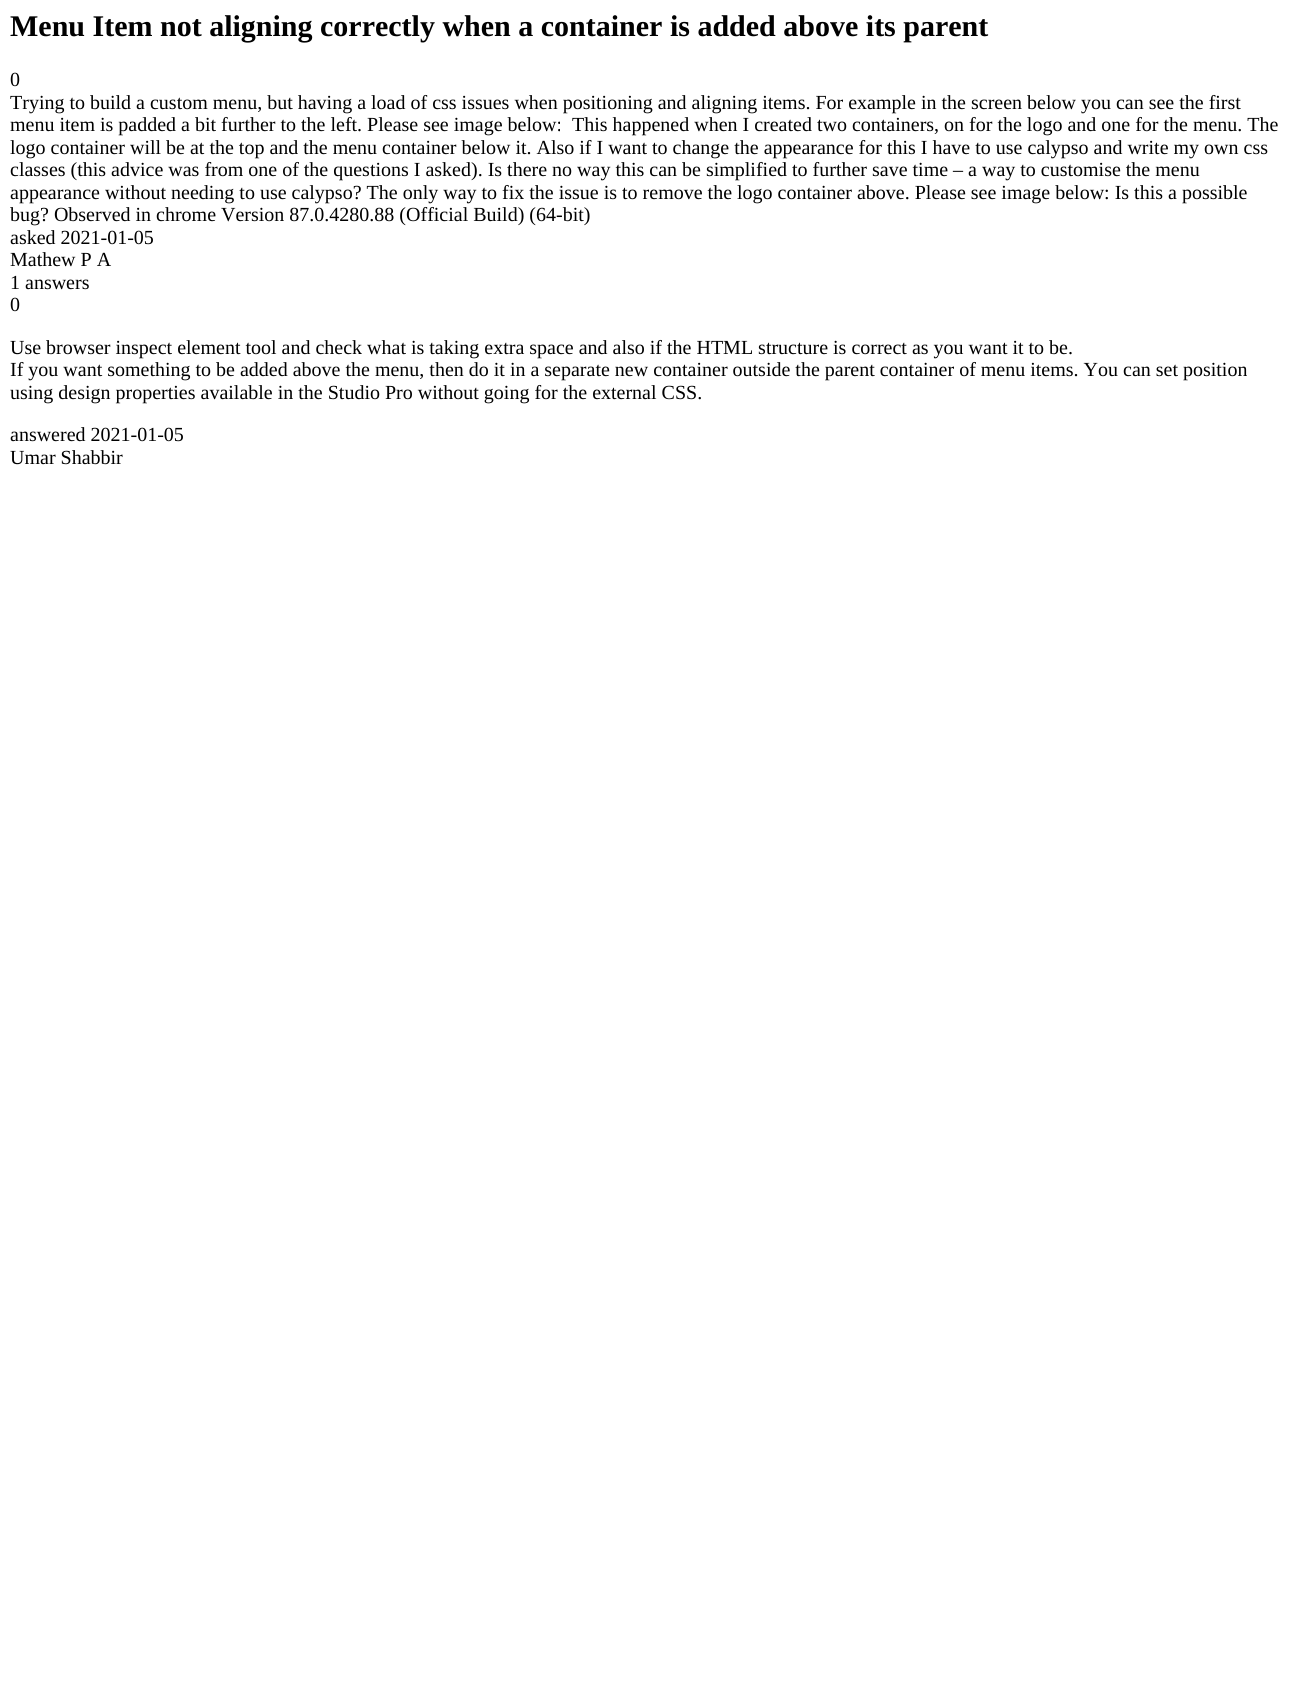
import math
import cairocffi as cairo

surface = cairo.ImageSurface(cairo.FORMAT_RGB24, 1298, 1682)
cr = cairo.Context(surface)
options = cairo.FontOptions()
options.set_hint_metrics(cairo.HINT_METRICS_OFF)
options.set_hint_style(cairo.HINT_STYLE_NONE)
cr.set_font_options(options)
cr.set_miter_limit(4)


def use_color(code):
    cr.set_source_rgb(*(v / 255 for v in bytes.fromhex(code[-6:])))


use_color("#ffffff")
cr.paint()
cr.select_font_face("Liberation Serif", cairo.FONT_SLANT_NORMAL, cairo.FONT_WEIGHT_BOLD)
cr.set_font_size(30)
use_color("#000000")
cr.move_to(10, 36)
cr.show_text("Menu Item not aligning correctly when a container is added above its parent")
cr.select_font_face("Liberation Serif")
cr.set_font_size(20)
cr.move_to(10, 86)
cr.show_text("0")
cr.move_to(10, 109)
cr.show_text("Trying to build a custom menu, but having a load of css issues when positioning and aligning items. For example in the screen below you can see the first")
cr.move_to(10, 131)
cr.show_text("menu item is padded a bit further to the left. Please see image below:")
cr.move_to(572, 131)
cr.show_text("This happened when I created two containers, on for the logo and one for the menu. The")
cr.move_to(10, 154)
cr.show_text("logo container will be at the top and the menu container below it. Also if I want to change the appearance for this I have to use calypso and write my own css")
cr.move_to(10, 176)
cr.show_text("classes (this advice was from one of the questions I asked). Is there no way this can be simplified to further save time – a way to customise the menu")
cr.move_to(10, 199)
cr.show_text("appearance without needing to use calypso? The only way to fix the issue is to remove the logo container above. Please see image below: Is this a possible")
cr.move_to(10, 221)
cr.show_text("bug? Observed in chrome Version 87.0.4280.88 (Official Build) (64-bit)")
cr.move_to(10, 244)
cr.show_text("asked 2021-01-05")
cr.move_to(10, 266)
cr.show_text("Mathew P A")
cr.move_to(10, 289)
cr.show_text("1 answers")
cr.move_to(10, 311)
cr.show_text("0")
cr.move_to(10, 354)
cr.show_text("Use browser inspect element tool and check what is taking extra space and also if the HTML structure is correct as you want it to be.")
cr.move_to(10, 376)
cr.show_text("If you want something to be added above the menu, then do it in a separate new container outside the parent container of menu items. You can set position")
cr.move_to(10, 399)
cr.show_text("using design properties available in the Studio Pro without going for the external CSS.")
cr.move_to(10, 441)
cr.show_text("answered 2021-01-05")
cr.move_to(10, 464)
cr.show_text("Umar Shabbir")
surface.write_to_png("result.png")
